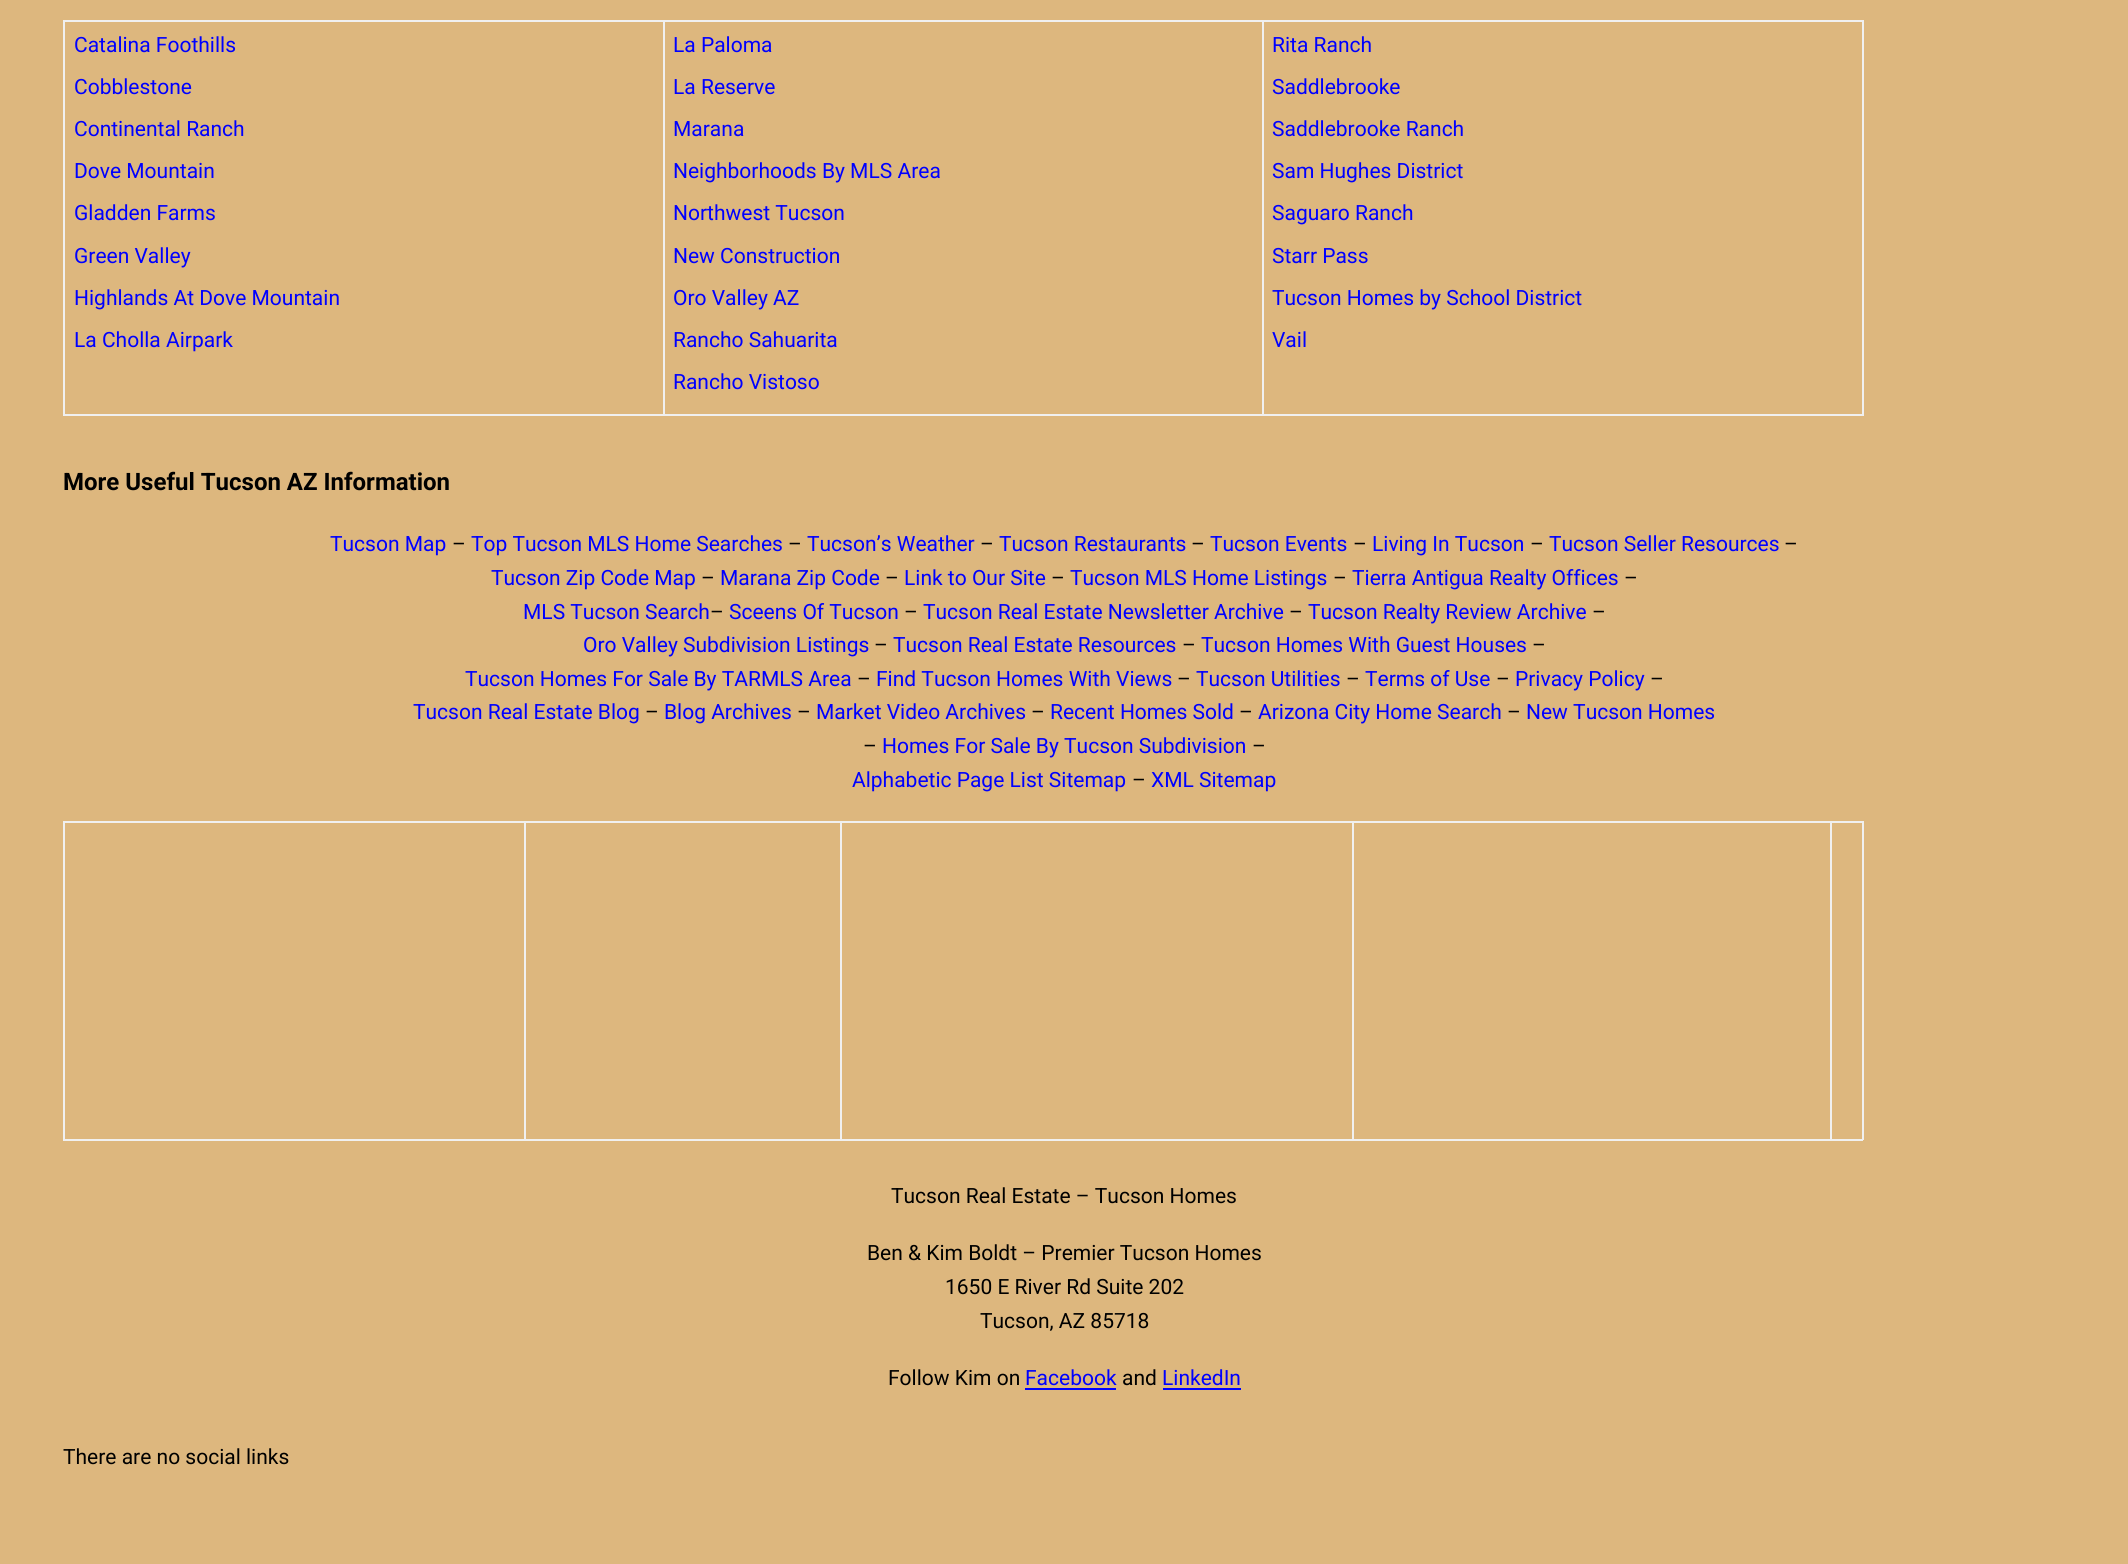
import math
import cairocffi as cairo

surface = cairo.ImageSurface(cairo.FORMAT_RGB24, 2128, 1564)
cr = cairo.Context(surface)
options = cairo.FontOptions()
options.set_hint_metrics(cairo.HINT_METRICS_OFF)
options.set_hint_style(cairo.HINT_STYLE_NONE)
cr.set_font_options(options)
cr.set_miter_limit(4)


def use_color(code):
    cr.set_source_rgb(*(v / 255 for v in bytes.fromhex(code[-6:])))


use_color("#ddb77e")
cr.paint()
use_color("#f0f0f0")
cr.rectangle(63, 20, 1800, 2)
cr.fill()
cr.rectangle(1862, 20, 2, 396)
cr.fill()
cr.rectangle(63, 414, 1800, 2)
cr.fill()
cr.rectangle(63, 20, 2, 396)
cr.fill()
cr.rectangle(663, 20, 2, 396)
cr.fill()
cr.select_font_face("Roboto")
cr.set_font_size(21)
use_color("#0000ff")
cr.move_to(74, 52)
cr.show_text("Catalina Foothills")
cr.move_to(74, 94)
cr.show_text("Cobblestone")
cr.move_to(74, 136)
cr.show_text("Continental Ranch")
cr.move_to(74, 178)
cr.show_text("Dove Mountain")
cr.move_to(74, 220)
cr.show_text("Gladden Farms")
cr.move_to(74, 263)
cr.show_text("Green Valley")
cr.move_to(74, 305)
cr.show_text("Highlands At Dove Mountain")
cr.move_to(74, 347)
cr.show_text("La Cholla Airpark")
use_color("#f0f0f0")
cr.rectangle(1262, 20, 2, 396)
cr.fill()
use_color("#0000ff")
cr.move_to(673, 52)
cr.show_text("La Paloma")
cr.move_to(673, 94)
cr.show_text("La Reserve")
cr.move_to(673, 136)
cr.show_text("Marana")
cr.move_to(673, 178)
cr.show_text("Neighborhoods By MLS Area")
cr.move_to(673, 220)
cr.show_text("Northwest Tucson")
cr.move_to(673, 263)
cr.show_text("New Construction")
cr.move_to(673, 305)
cr.show_text("Oro Valley AZ")
cr.move_to(673, 347)
cr.show_text("Rancho Sahuarita")
cr.move_to(673, 389)
cr.show_text("Rancho Vistoso")
cr.move_to(1272, 52)
cr.show_text("Rita Ranch")
cr.move_to(1272, 94)
cr.show_text("Saddlebrooke")
cr.move_to(1272, 136)
cr.show_text("Saddlebrooke Ranch")
cr.move_to(1272, 178)
cr.show_text("Sam Hughes District")
cr.move_to(1272, 220)
cr.show_text("Saguaro Ranch")
cr.move_to(1272, 263)
cr.show_text("Starr Pass")
cr.move_to(1272, 305)
cr.show_text("Tucson Homes by School District")
cr.move_to(1272, 347)
cr.show_text("Vail")
cr.select_font_face("Roboto", cairo.FONT_SLANT_NORMAL, cairo.FONT_WEIGHT_BOLD)
cr.set_font_size(24)
use_color("#000000")
cr.move_to(63, 490)
cr.show_text("More Useful Tucson AZ Information")
cr.select_font_face("Roboto")
cr.set_font_size(21)
use_color("#0000ff")
cr.move_to(330, 551)
cr.show_text("Tucson Map")
use_color("#000000")
cr.move_to(452, 551)
cr.show_text("–")
use_color("#0000ff")
cr.move_to(471, 551)
cr.show_text("Top Tucson MLS Home Searches")
use_color("#000000")
cr.move_to(788, 551)
cr.show_text("–")
use_color("#0000ff")
cr.move_to(807, 551)
cr.show_text("Tucson’s Weather")
use_color("#000000")
cr.move_to(980, 551)
cr.show_text("–")
use_color("#0000ff")
cr.move_to(999, 551)
cr.show_text("Tucson Restaurants")
use_color("#000000")
cr.move_to(1191, 551)
cr.show_text("–")
use_color("#0000ff")
cr.move_to(1210, 551)
cr.show_text("Tucson Events")
use_color("#000000")
cr.move_to(1353, 551)
cr.show_text("–")
use_color("#0000ff")
cr.move_to(1372, 551)
cr.show_text("Living In Tucson")
use_color("#000000")
cr.move_to(1530, 551)
cr.show_text("–")
use_color("#0000ff")
cr.move_to(1549, 551)
cr.show_text("Tucson Seller Resources")
use_color("#000000")
cr.move_to(1784, 551)
cr.show_text("–")
use_color("#0000ff")
cr.move_to(491, 585)
cr.show_text("Tucson Zip Code Map")
use_color("#000000")
cr.move_to(701, 585)
cr.show_text("–")
use_color("#0000ff")
cr.move_to(720, 585)
cr.show_text("Marana Zip Code")
use_color("#000000")
cr.move_to(885, 585)
cr.show_text("–")
use_color("#0000ff")
cr.move_to(904, 585)
cr.show_text("Link to Our Site")
use_color("#000000")
cr.move_to(1051, 585)
cr.show_text("–")
use_color("#0000ff")
cr.move_to(1070, 585)
cr.show_text("Tucson MLS Home Listings")
use_color("#000000")
cr.move_to(1333, 585)
cr.show_text("–")
use_color("#0000ff")
cr.move_to(1352, 585)
cr.show_text("Tierra Antigua Realty Offices")
use_color("#000000")
cr.move_to(1624, 585)
cr.show_text("–")
use_color("#0000ff")
cr.move_to(523, 619)
cr.show_text("MLS Tucson Search")
use_color("#000000")
cr.move_to(710, 619)
cr.show_text("–")
use_color("#0000ff")
cr.move_to(729, 619)
cr.show_text("Sceens Of Tucson")
use_color("#000000")
cr.move_to(904, 619)
cr.show_text("–")
use_color("#0000ff")
cr.move_to(923, 619)
cr.show_text("Tucson Real Estate Newsletter Archive")
use_color("#000000")
cr.move_to(1289, 619)
cr.show_text("–")
use_color("#0000ff")
cr.move_to(1308, 619)
cr.show_text("Tucson Realty Review Archive")
use_color("#000000")
cr.move_to(1592, 619)
cr.show_text("–")
use_color("#0000ff")
cr.move_to(583, 652)
cr.show_text("Oro Valley Subdivision Listings")
use_color("#000000")
cr.move_to(874, 652)
cr.show_text("–")
use_color("#0000ff")
cr.move_to(893, 652)
cr.show_text("Tucson Real Estate Resources")
use_color("#000000")
cr.move_to(1182, 652)
cr.show_text("–")
use_color("#0000ff")
cr.move_to(1201, 652)
cr.show_text("Tucson Homes With Guest Houses")
use_color("#000000")
cr.move_to(1532, 652)
cr.show_text("–")
use_color("#0000ff")
cr.move_to(465, 686)
cr.show_text("Tucson Homes For Sale By TARMLS Area")
use_color("#000000")
cr.move_to(857, 686)
cr.show_text("–")
use_color("#0000ff")
cr.move_to(876, 686)
cr.show_text("Find Tucson Homes With Views")
use_color("#000000")
cr.move_to(1177, 686)
cr.show_text("–")
use_color("#0000ff")
cr.move_to(1196, 686)
cr.show_text("Tucson Utilities")
use_color("#000000")
cr.move_to(1346, 686)
cr.show_text("–")
use_color("#0000ff")
cr.move_to(1365, 686)
cr.show_text("Terms of Use")
use_color("#000000")
cr.move_to(1496, 686)
cr.show_text("–")
use_color("#0000ff")
cr.move_to(1515, 686)
cr.show_text("Privacy Policy")
use_color("#000000")
cr.move_to(1650, 686)
cr.show_text("–")
use_color("#0000ff")
cr.move_to(413, 719)
cr.show_text("Tucson Real Estate Blog")
use_color("#000000")
cr.move_to(645, 719)
cr.show_text("–")
use_color("#0000ff")
cr.move_to(664, 719)
cr.show_text("Blog Archives")
use_color("#000000")
cr.move_to(797, 719)
cr.show_text("–")
use_color("#0000ff")
cr.move_to(816, 719)
cr.show_text("Market Video Archives")
use_color("#000000")
cr.move_to(1031, 719)
cr.show_text("–")
use_color("#0000ff")
cr.move_to(1050, 719)
cr.show_text("Recent Homes Sold")
use_color("#000000")
cr.move_to(1239, 719)
cr.show_text("–")
use_color("#0000ff")
cr.move_to(1258, 719)
cr.show_text("Arizona City Home Search")
use_color("#000000")
cr.move_to(1507, 719)
cr.show_text("–")
use_color("#0000ff")
cr.move_to(1526, 719)
cr.show_text("New Tucson Homes")
use_color("#000000")
cr.move_to(863, 753)
cr.show_text("–")
use_color("#0000ff")
cr.move_to(882, 753)
cr.show_text("Homes For Sale By Tucson Subdivision")
use_color("#000000")
cr.move_to(1252, 753)
cr.show_text("–")
use_color("#0000ff")
cr.move_to(852, 787)
cr.show_text("Alphabetic Page List Sitemap")
use_color("#000000")
cr.move_to(1132, 787)
cr.show_text("–")
use_color("#0000ff")
cr.move_to(1151, 787)
cr.show_text("XML Sitemap")
use_color("#f0f0f0")
cr.rectangle(63, 821, 1800, 2)
cr.fill()
cr.rectangle(1862, 821, 2, 319)
cr.fill()
cr.rectangle(63, 1139, 1800, 2)
cr.fill()
cr.rectangle(63, 821, 2, 319)
cr.fill()
cr.rectangle(524, 821, 2, 319)
cr.fill()
cr.rectangle(840, 821, 2, 319)
cr.fill()
cr.rectangle(1352, 821, 2, 319)
cr.fill()
cr.rectangle(1830, 821, 2, 319)
cr.fill()
use_color("#000000")
cr.move_to(891, 1203)
cr.show_text("Tucson Real Estate – Tucson Homes")
cr.move_to(867, 1260)
cr.show_text("Ben & Kim Boldt – Premier Tucson Homes")
cr.move_to(945, 1294)
cr.show_text("1650 E River Rd Suite 202")
cr.move_to(980, 1328)
cr.show_text("Tucson, AZ 85718")
cr.move_to(888, 1385)
cr.show_text("Follow Kim on")
use_color("#0000ff")
cr.move_to(1025, 1385)
cr.show_text("Facebook")
cr.rectangle(1025, 1388, 91, 2)
cr.fill()
use_color("#000000")
cr.move_to(1122, 1385)
cr.show_text("and")
use_color("#0000ff")
cr.move_to(1162, 1385)
cr.show_text("LinkedIn")
cr.rectangle(1163, 1388, 78, 2)
cr.fill()
use_color("#000000")
cr.move_to(63, 1464)
cr.show_text("There are no social links")
surface.write_to_png("result.png")
